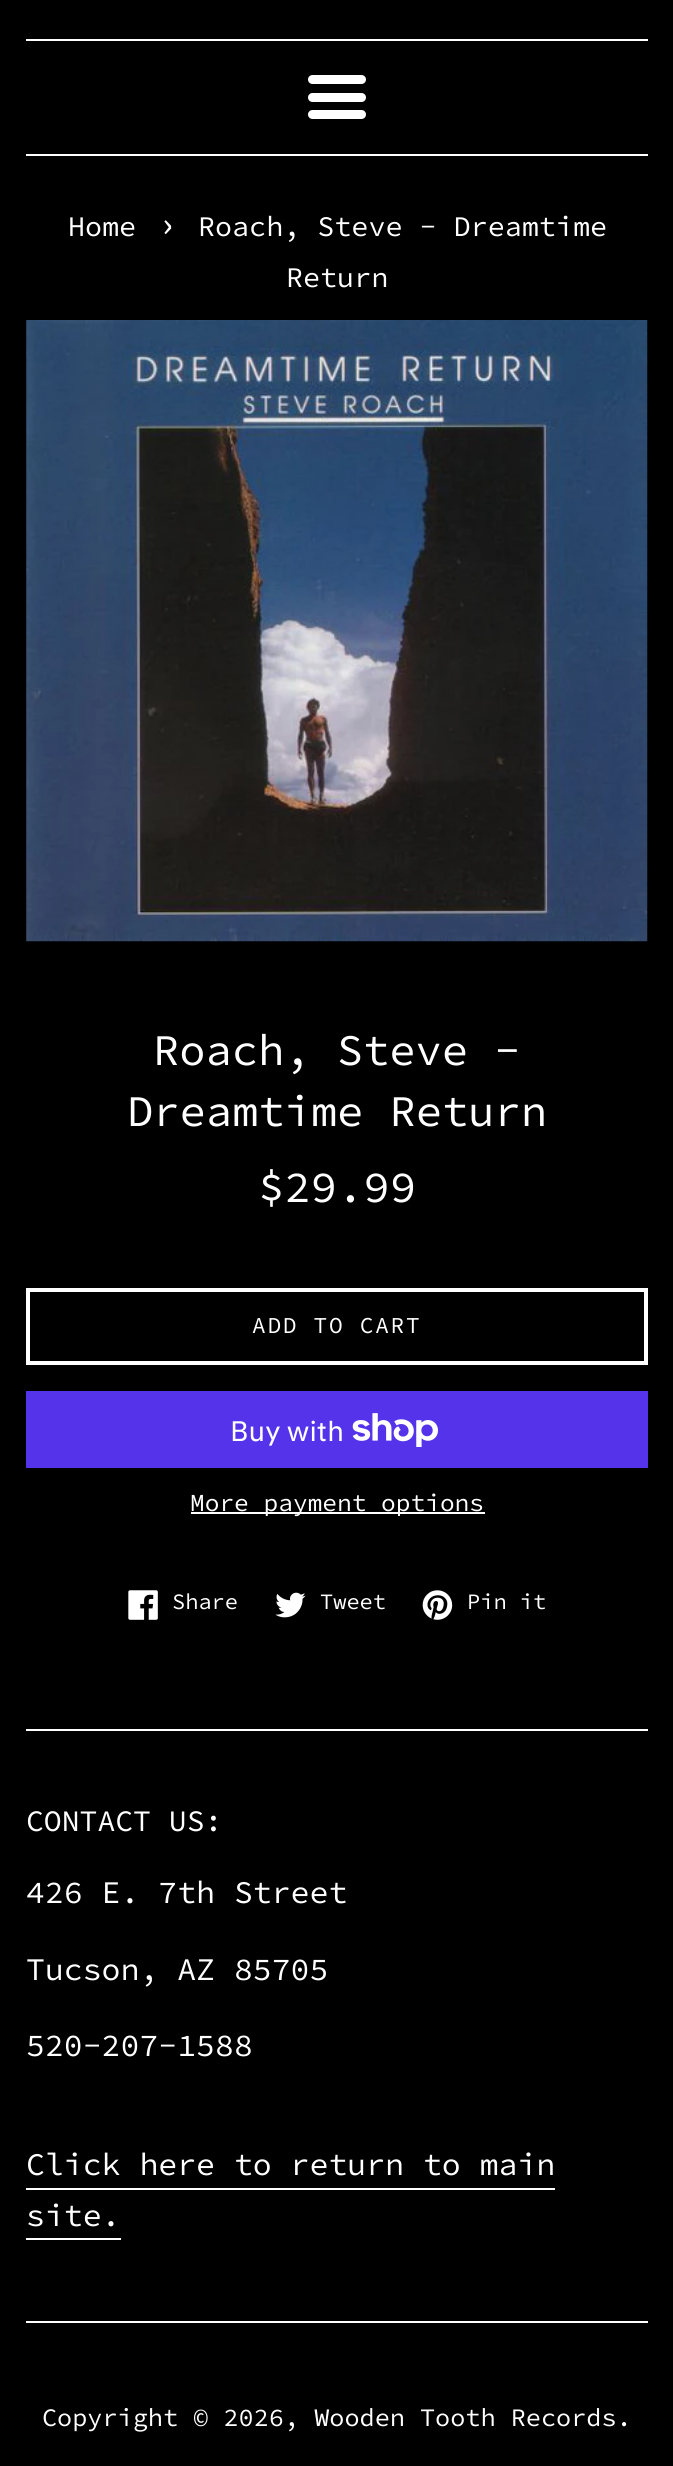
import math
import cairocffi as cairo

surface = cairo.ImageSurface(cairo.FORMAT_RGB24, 673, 2466)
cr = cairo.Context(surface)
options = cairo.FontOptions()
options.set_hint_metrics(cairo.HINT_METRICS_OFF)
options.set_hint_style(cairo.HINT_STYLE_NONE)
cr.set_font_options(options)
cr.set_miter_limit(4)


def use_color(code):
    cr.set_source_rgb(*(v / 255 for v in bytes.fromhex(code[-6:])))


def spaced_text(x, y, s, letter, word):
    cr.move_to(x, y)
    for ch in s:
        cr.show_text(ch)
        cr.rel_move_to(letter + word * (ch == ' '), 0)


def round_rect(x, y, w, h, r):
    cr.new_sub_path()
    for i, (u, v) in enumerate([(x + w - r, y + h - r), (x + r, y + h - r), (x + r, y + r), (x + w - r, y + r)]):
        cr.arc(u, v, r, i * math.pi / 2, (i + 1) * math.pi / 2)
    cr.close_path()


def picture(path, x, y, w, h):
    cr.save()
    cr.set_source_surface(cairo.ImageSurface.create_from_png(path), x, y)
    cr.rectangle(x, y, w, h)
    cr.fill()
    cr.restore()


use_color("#000000")
cr.paint()
use_color("#ffffff")
cr.rectangle(26, 39, 622, 2)
cr.fill()
round_rect(308, 75, 58, 9, 4.5)
cr.fill()
round_rect(308, 93, 58, 9, 4.5)
cr.fill()
round_rect(308, 110, 58, 9, 4.5)
cr.fill()
cr.rectangle(26, 154, 622, 2)
cr.fill()
cr.select_font_face("Source Code Pro")
cr.set_font_size(28.4)
cr.move_to(68, 236)
cr.show_text("Home")
cr.set_font_size(35)
cr.move_to(157, 236)
cr.show_text("›")
cr.set_font_size(28.4)
cr.move_to(198, 236)
cr.show_text("Roach, Steve - Dreamtime")
cr.move_to(286, 287)
cr.show_text("Return")
picture("img1.png", 26, 320, 622, 622)
cr.set_font_size(43.75)
cr.move_to(153, 1065)
cr.show_text("Roach, Steve -")
cr.move_to(127, 1126)
cr.show_text("Dreamtime Return")
cr.set_font_size(44)
cr.move_to(258, 1202)
cr.show_text("$29.99")
cr.rectangle(28, 1290, 618, 73)
cr.set_line_width(4)
cr.stroke()
cr.set_font_size(22.75)
spaced_text(252, 1333, "ADD TO CART", 1.75, 0)
use_color("#5433eb")
cr.rectangle(26, 1391, 622, 77)
cr.fill()
cr.select_font_face("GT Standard")
cr.set_font_size(28)
use_color("#ffffff")
cr.move_to(230, 1441)
cr.show_text("Buy with")
picture("img2.png", 352, 1413, 86, 34)
cr.rectangle(191, 1512, 294, 2)
cr.fill()
cr.select_font_face("Source Code Pro")
cr.set_font_size(24.5)
cr.move_to(190, 1511)
cr.show_text("More payment options")
picture("img3.png", 128, 1590, 30, 30)
cr.set_font_size(22)
cr.move_to(172, 1609)
cr.show_text("Share")
picture("img4.png", 275, 1592, 31, 26)
cr.move_to(320, 1609)
cr.show_text("Tweet")
picture("img5.png", 422, 1590, 31, 30)
cr.move_to(467, 1609)
cr.show_text("Pin it")
cr.rectangle(26, 1729, 622, 2)
cr.fill()
cr.set_font_size(29.75)
cr.move_to(26, 1831)
cr.show_text("CONTACT US:")
cr.set_font_size(31.5)
cr.move_to(26, 1903)
cr.show_text("426 E. 7th Street")
cr.move_to(26, 1980)
cr.show_text("Tucson, AZ 85705")
cr.move_to(26, 2056)
cr.show_text("520-207-1588")
cr.move_to(26, 2175)
cr.show_text("Click here to return to main")
cr.rectangle(26, 2188, 529, 2)
cr.fill()
cr.move_to(26, 2226)
cr.show_text("site.")
cr.rectangle(26, 2238, 95, 2)
cr.fill()
cr.rectangle(26, 2321, 622, 2)
cr.fill()
cr.set_font_size(25.2)
cr.move_to(42, 2426)
cr.show_text("Copyright © 2026, Wooden Tooth Records.")
surface.write_to_png("result.png")
